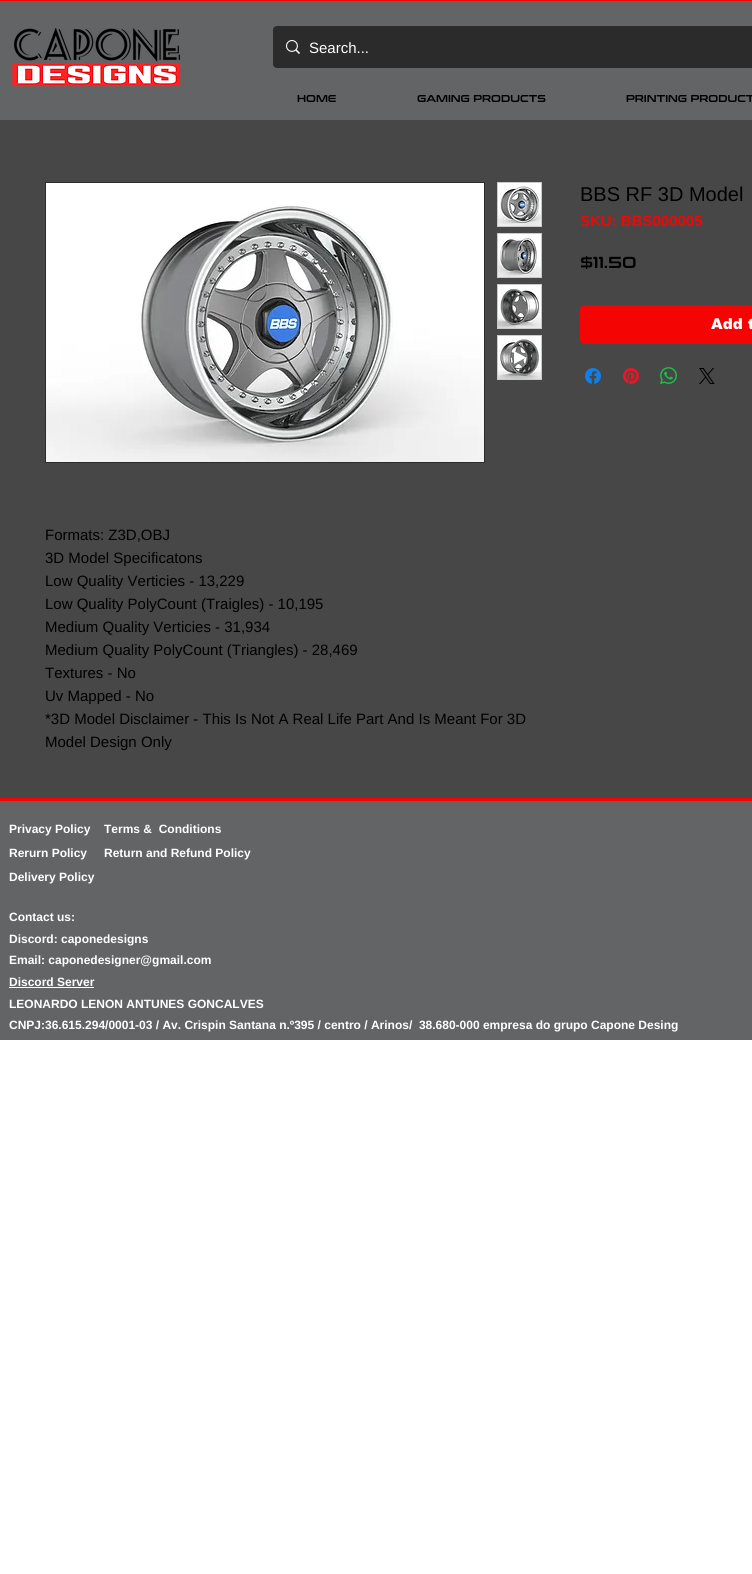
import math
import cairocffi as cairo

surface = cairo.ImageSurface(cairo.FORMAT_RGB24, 752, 1574)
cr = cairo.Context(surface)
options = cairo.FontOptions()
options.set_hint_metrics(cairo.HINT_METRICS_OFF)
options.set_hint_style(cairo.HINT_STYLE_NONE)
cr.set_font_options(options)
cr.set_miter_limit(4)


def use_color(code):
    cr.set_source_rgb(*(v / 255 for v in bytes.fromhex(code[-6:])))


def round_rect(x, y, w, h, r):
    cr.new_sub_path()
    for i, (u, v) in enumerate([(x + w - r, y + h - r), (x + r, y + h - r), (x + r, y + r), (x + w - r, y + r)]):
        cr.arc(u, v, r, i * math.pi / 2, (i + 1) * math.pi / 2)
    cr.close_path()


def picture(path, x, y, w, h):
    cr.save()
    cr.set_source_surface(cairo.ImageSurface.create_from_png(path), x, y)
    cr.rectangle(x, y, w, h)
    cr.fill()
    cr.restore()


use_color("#ffffff")
cr.paint()
use_color("#f50404")
cr.rectangle(0, 0, 752, 1)
cr.fill()
use_color("#636466")
cr.rectangle(0, 1, 752, 119)
cr.fill()
picture("img1.png", 12, 28, 169, 59)
use_color("#2b2b2b")
round_rect(273, 26, 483, 42, 4)
cr.fill()
picture("img2.png", 286, 40, 14, 14)
cr.select_font_face("Liberation Sans")
cr.set_font_size(15)
use_color("#ffffff")
cr.move_to(309, 53)
cr.show_text("Search...")
cr.select_font_face("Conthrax")
cr.set_font_size(10)
use_color("#000000")
cr.move_to(297, 102)
cr.show_text("HOME")
cr.move_to(417, 102)
cr.show_text("GAMING PRODUCTS")
cr.move_to(626, 102)
cr.show_text("PRINTING PRODUCT")
use_color("#474747")
cr.rectangle(0, 120, 752, 678)
cr.fill()
cr.select_font_face("Liberation Sans")
cr.set_font_size(20)
use_color("#000000")
cr.move_to(580, 201)
cr.show_text("BBS RF 3D Model")
cr.select_font_face("Liberation Sans", cairo.FONT_SLANT_NORMAL, cairo.FONT_WEIGHT_BOLD)
cr.set_font_size(15)
use_color("#f50404")
cr.move_to(580, 226)
cr.show_text("SKU: BBS000005")
cr.select_font_face("Conthrax")
cr.set_font_size(16)
use_color("#000000")
cr.move_to(580, 268)
cr.show_text("$11.50")
use_color("#f50404")
round_rect(580, 305, 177, 39, 5)
cr.fill()
cr.select_font_face("arial Black")
cr.set_font_size(15)
use_color("#ffffff")
cr.move_to(711, 329)
cr.show_text("Add t")
picture("img3.png", 585, 368, 16, 16)
picture("img4.png", 623, 368, 16, 16)
picture("img5.png", 660, 367, 17, 17)
picture("img6.png", 699, 368, 16, 16)
cr.rectangle(45.5, 182.5, 439, 280)
use_color("#2b2b2b")
cr.set_line_width(1)
cr.stroke()
picture("img7.png", 46, 183, 438, 279)
use_color("#cacaca")
cr.rectangle(497, 182, 45, 45)
cr.fill()
picture("img8.png", 498, 183, 43, 43)
cr.rectangle(497, 233, 45, 45)
cr.fill()
picture("img9.png", 498, 234, 43, 43)
cr.rectangle(497, 284, 45, 45)
cr.fill()
picture("img10.png", 498, 285, 43, 43)
cr.rectangle(497, 335, 45, 45)
cr.fill()
picture("img11.png", 498, 336, 43, 43)
use_color("#ffffff")
cr.new_path()
cr.move_to(514, 351)
cr.line_to(514, 364)
cr.line_to(526, 357.5)
cr.close_path()
cr.fill()
cr.select_font_face("Liberation Sans")
use_color("#000000")
cr.move_to(45, 540)
cr.show_text("Formats: Z3D,OBJ")
cr.move_to(45, 563)
cr.show_text("3D Model Specificatons")
cr.move_to(45, 586)
cr.show_text("Low Quality Verticies - 13,229")
cr.move_to(45, 609)
cr.show_text("Low Quality PolyCount (Traigles) - 10,195")
cr.move_to(45, 632)
cr.show_text("Medium Quality Verticies - 31,934")
cr.move_to(45, 655)
cr.show_text("Medium Quality PolyCount (Triangles) - 28,469")
cr.move_to(45, 678)
cr.show_text("Textures - No")
cr.move_to(45, 701)
cr.show_text("Uv Mapped - No")
cr.move_to(45, 724)
cr.show_text("*3D Model Disclaimer - This Is Not A Real Life Part And Is Meant For 3D")
cr.move_to(45, 747)
cr.show_text("Model Design Only")
use_color("#f50404")
cr.rectangle(0, 798, 752, 3)
cr.fill()
use_color("#636466")
cr.rectangle(0, 801, 752, 239)
cr.fill()
cr.select_font_face("Liberation Sans", cairo.FONT_SLANT_NORMAL, cairo.FONT_WEIGHT_BOLD)
cr.set_font_size(12)
use_color("#ffffff")
cr.move_to(9, 833)
cr.show_text("Privacy Policy")
cr.move_to(104, 833)
cr.show_text("Terms &  Conditions")
cr.move_to(9, 857)
cr.show_text("Rerurn Policy")
cr.move_to(104, 857)
cr.show_text("Return and Refund Policy")
cr.move_to(9, 881)
cr.show_text("Delivery Policy")
cr.move_to(9, 921)
cr.show_text("Contact us:")
cr.move_to(9, 943)
cr.show_text("Discord: caponedesigns")
cr.move_to(9, 964)
cr.show_text("Email: caponedesigner@gmail.com")
cr.move_to(9, 986)
cr.show_text("Discord Server")
cr.rectangle(9, 987, 85, 1)
cr.fill()
cr.move_to(9, 1008)
cr.show_text("LEONARDO LENON ANTUNES GONCALVES")
cr.move_to(9, 1029)
cr.show_text("CNPJ:36.615.294/0001-03 / Av. Crispin Santana n.º395 / centro / Arinos/  38.680-000 empresa do grupo Capone Desing")
surface.write_to_png("result.png")
